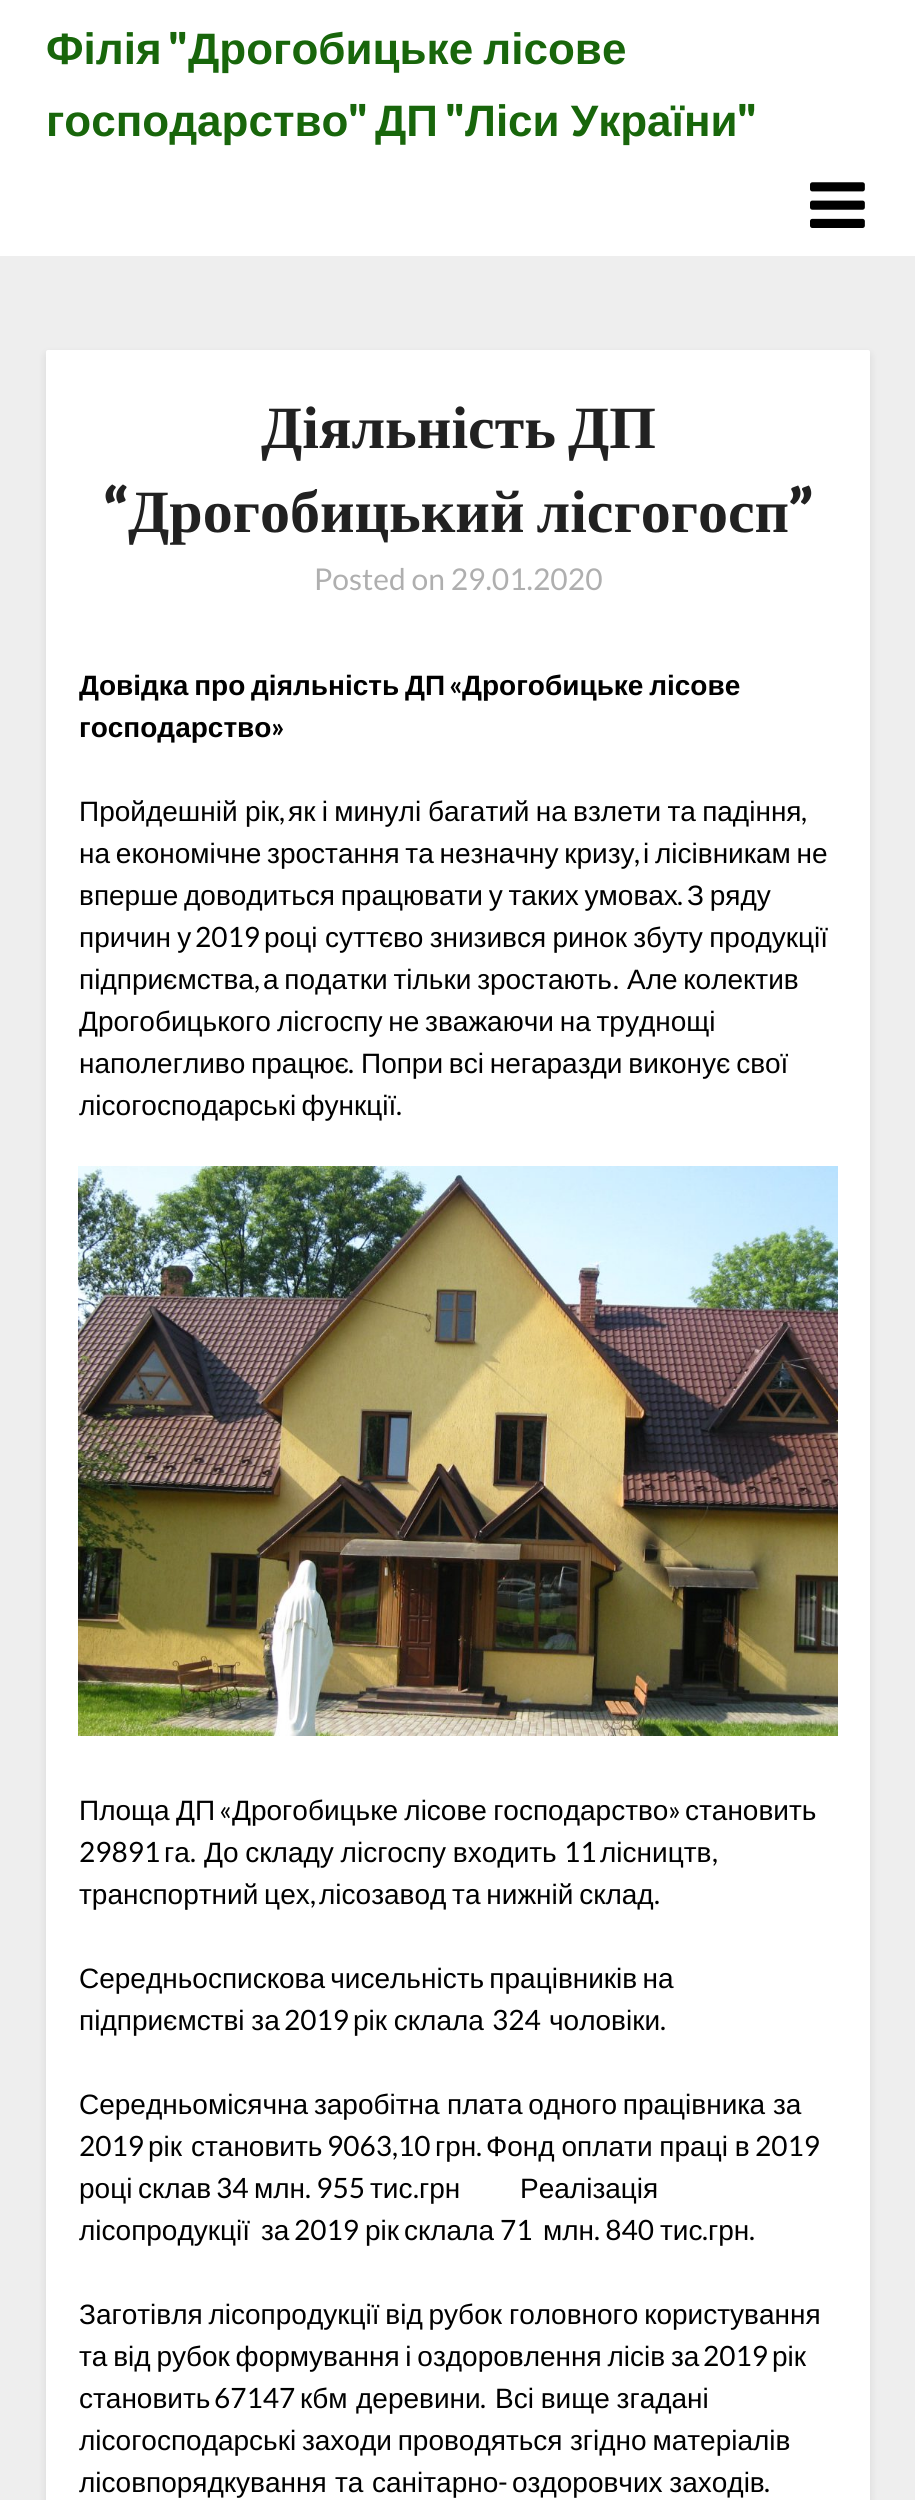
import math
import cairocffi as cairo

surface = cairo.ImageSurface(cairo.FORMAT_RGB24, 915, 2500)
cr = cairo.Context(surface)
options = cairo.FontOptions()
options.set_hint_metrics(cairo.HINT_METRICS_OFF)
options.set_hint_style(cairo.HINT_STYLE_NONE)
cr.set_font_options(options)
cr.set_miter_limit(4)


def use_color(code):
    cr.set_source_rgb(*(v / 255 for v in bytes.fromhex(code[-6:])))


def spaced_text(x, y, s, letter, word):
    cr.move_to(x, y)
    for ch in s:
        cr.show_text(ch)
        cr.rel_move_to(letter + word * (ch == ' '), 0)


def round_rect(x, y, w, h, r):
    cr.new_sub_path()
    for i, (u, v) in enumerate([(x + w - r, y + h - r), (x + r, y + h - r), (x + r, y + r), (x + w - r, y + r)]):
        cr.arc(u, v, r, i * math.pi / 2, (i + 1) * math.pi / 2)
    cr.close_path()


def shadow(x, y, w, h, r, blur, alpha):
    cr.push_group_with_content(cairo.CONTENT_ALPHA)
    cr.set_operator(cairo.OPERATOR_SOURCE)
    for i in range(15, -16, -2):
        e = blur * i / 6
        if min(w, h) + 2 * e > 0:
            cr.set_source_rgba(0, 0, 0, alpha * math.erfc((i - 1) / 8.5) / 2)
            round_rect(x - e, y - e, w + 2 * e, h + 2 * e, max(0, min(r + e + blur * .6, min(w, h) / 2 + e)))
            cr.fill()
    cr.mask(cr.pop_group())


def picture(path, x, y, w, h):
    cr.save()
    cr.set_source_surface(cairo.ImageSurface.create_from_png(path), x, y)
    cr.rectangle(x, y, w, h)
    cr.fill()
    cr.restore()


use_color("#eeeeee")
cr.paint()
use_color("#ffffff")
cr.rectangle(0, 0, 915, 256)
cr.fill()
cr.select_font_face("Liberation Sans", cairo.FONT_SLANT_NORMAL, cairo.FONT_WEIGHT_BOLD)
cr.set_font_size(44)
use_color("#18660b")
cr.move_to(46, 64)
cr.show_text("Філія")
cr.select_font_face("Lato Black")
cr.move_to(168, 64)
cr.show_text("\"")
cr.select_font_face("Liberation Sans", cairo.FONT_SLANT_NORMAL, cairo.FONT_WEIGHT_BOLD)
spaced_text(188, 64, "Дрогобицьке лісове", 0, -2)
cr.move_to(46, 136)
cr.show_text("господарство")
cr.select_font_face("Lato Black")
cr.move_to(348, 136)
cr.show_text("\"")
cr.select_font_face("Liberation Sans", cairo.FONT_SLANT_NORMAL, cairo.FONT_WEIGHT_BOLD)
cr.move_to(375, 136)
cr.show_text("ДП")
cr.select_font_face("Lato Black")
cr.move_to(445, 136)
cr.show_text("\"")
cr.select_font_face("Liberation Sans", cairo.FONT_SLANT_NORMAL, cairo.FONT_WEIGHT_BOLD)
spaced_text(465, 136, "Ліси України", 0, -1)
cr.select_font_face("Lato Black")
cr.move_to(737, 136)
cr.show_text("\"")
picture("img1.png", 810, 182, 55, 46)
use_color("#000000")
shadow(46, 354, 824, 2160, 2, 4, 0.1)
use_color("#ffffff")
round_rect(46, 350, 824, 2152, 2)
cr.fill()
cr.select_font_face("Liberation Serif", cairo.FONT_SLANT_NORMAL, cairo.FONT_WEIGHT_BOLD)
cr.set_font_size(60)
use_color("#212121")
spaced_text(261, 448, "Діяльність ДП", 0, -3)
cr.select_font_face("Lato Black")
cr.move_to(103, 532)
cr.show_text("“")
cr.select_font_face("Liberation Serif", cairo.FONT_SLANT_NORMAL, cairo.FONT_WEIGHT_BOLD)
spaced_text(128, 532, "Дрогобицький лісгогосп", 0, -3)
cr.select_font_face("Lato Black")
cr.move_to(788, 532)
cr.show_text("”")
cr.select_font_face("Lato")
cr.set_font_size(30)
use_color("#afafaf")
cr.move_to(314, 590)
cr.show_text("Posted on 29.01.2020")
cr.select_font_face("Liberation Sans", cairo.FONT_SLANT_NORMAL, cairo.FONT_WEIGHT_BOLD)
cr.set_font_size(28)
use_color("#000000")
spaced_text(79, 695, "Довідка про діяльність ДП", 0, -2)
cr.select_font_face("Lato", cairo.FONT_SLANT_NORMAL, cairo.FONT_WEIGHT_BOLD)
cr.move_to(449, 695)
cr.show_text("«")
cr.select_font_face("Liberation Sans", cairo.FONT_SLANT_NORMAL, cairo.FONT_WEIGHT_BOLD)
spaced_text(462, 695, "Дрогобицьке лісове", 0, -2)
cr.move_to(79, 737)
cr.show_text("господарство")
cr.select_font_face("Lato", cairo.FONT_SLANT_NORMAL, cairo.FONT_WEIGHT_BOLD)
cr.move_to(271, 737)
cr.show_text("»")
cr.select_font_face("Liberation Sans")
cr.move_to(79, 821)
cr.show_text("Пройдешній")
cr.move_to(245, 821)
cr.show_text("рік")
cr.select_font_face("Lato")
cr.move_to(279, 821)
cr.show_text(",")
cr.select_font_face("Liberation Sans")
spaced_text(288, 821, "як і минулі", 0, -1.5)
spaced_text(428, 821, "багатий на взлети та падіння", 0, -1.5)
cr.select_font_face("Lato")
cr.move_to(801, 821)
cr.show_text(",")
cr.select_font_face("Liberation Sans")
spaced_text(79, 863, "на економічне зростання та незначну кризу", 0, -2)
cr.select_font_face("Lato")
cr.move_to(634, 863)
cr.show_text(",")
cr.select_font_face("Liberation Sans")
spaced_text(643, 863, "і лісівникам не", 0, -2)
spaced_text(79, 905, "вперше доводиться працювати у таких умовах", 0, -2)
cr.select_font_face("Lato")
cr.move_to(677, 905)
cr.show_text(".")
cr.select_font_face("Liberation Sans")
spaced_text(687, 905, "З ряду", 0, -2)
spaced_text(79, 947, "причин у", 0, -1.5)
cr.select_font_face("Lato")
cr.move_to(195, 947)
cr.show_text("2019")
cr.select_font_face("Liberation Sans")
cr.move_to(264, 947)
cr.show_text("році")
spaced_text(325, 947, "суттєво знизився ринок збуту продукції", 0, -1.5)
cr.move_to(79, 989)
cr.show_text("підприємства")
cr.select_font_face("Lato")
cr.move_to(254, 989)
cr.show_text(",")
cr.select_font_face("Liberation Sans")
spaced_text(263, 989, "а податки тільки зростають", 0, -2)
cr.select_font_face("Lato")
cr.move_to(613, 989)
cr.show_text(".")
cr.select_font_face("Liberation Sans")
spaced_text(627, 989, "Але колектив", 0, -2)
cr.move_to(79, 1031)
cr.show_text("Дрогобицького")
spaced_text(277, 1031, "лісгоспу не зважаючи на труднощі", 0, -2)
spaced_text(79, 1073, "наполегливо працює", 0, -2)
cr.select_font_face("Lato")
cr.move_to(348, 1073)
cr.show_text(".")
cr.select_font_face("Liberation Sans")
spaced_text(361, 1073, "Попри всі негаразди виконує свої", 0, -2)
spaced_text(79, 1115, "лісогосподарські функції", 0, -2.5)
cr.select_font_face("Lato")
cr.move_to(396, 1115)
cr.show_text(".")
picture("img2.png", 78, 1166, 760, 570)
cr.select_font_face("Liberation Sans")
spaced_text(79, 1820, "Площа ДП", 0, -1.5)
cr.select_font_face("Lato")
cr.move_to(219, 1820)
cr.show_text("«")
cr.select_font_face("Liberation Sans")
spaced_text(232, 1820, "Дрогобицьке лісове господарство", 0, -1.5)
cr.select_font_face("Lato")
cr.move_to(668, 1820)
cr.show_text("»")
cr.select_font_face("Liberation Sans")
cr.move_to(685, 1820)
cr.show_text("становить")
cr.select_font_face("Lato")
cr.move_to(79, 1862)
cr.show_text("29891")
cr.select_font_face("Liberation Sans")
cr.move_to(164, 1862)
cr.show_text("га")
cr.select_font_face("Lato")
cr.move_to(190, 1862)
cr.show_text(".")
cr.select_font_face("Liberation Sans")
spaced_text(204, 1862, "До складу лісгоспу входить", 0, -1)
cr.select_font_face("Lato")
cr.move_to(564, 1862)
cr.show_text("11")
cr.select_font_face("Liberation Sans")
cr.move_to(600, 1862)
cr.show_text("лісництв")
cr.select_font_face("Lato")
cr.move_to(712, 1862)
cr.show_text(",")
cr.select_font_face("Liberation Sans")
spaced_text(79, 1904, "транспортний цех", 0, -2)
cr.select_font_face("Lato")
cr.move_to(310, 1904)
cr.show_text(",")
cr.select_font_face("Liberation Sans")
spaced_text(319, 1904, "лісозавод та нижній склад", 0, -2)
cr.select_font_face("Lato")
cr.move_to(654, 1904)
cr.show_text(".")
cr.select_font_face("Liberation Sans")
spaced_text(79, 1988, "Середньоспискова чисельність працівників на", 0, -2.5)
spaced_text(79, 2030, "підприємстві за", 0, -1)
cr.select_font_face("Lato")
cr.move_to(284, 2030)
cr.show_text("2019")
cr.select_font_face("Liberation Sans")
spaced_text(353, 2030, "рік склала", 0, -1)
cr.select_font_face("Lato")
cr.move_to(492, 2030)
cr.show_text("324")
cr.select_font_face("Liberation Sans")
cr.move_to(549, 2030)
cr.show_text("чоловіки")
cr.select_font_face("Lato")
cr.move_to(660, 2030)
cr.show_text(".")
cr.select_font_face("Liberation Sans")
spaced_text(79, 2114, "Середньомісячна заробітна", 0, -2)
spaced_text(447, 2114, "плата одного працівника", 0, -2)
cr.move_to(773, 2114)
cr.show_text("за")
cr.select_font_face("Lato")
cr.move_to(79, 2156)
cr.show_text("2019")
cr.select_font_face("Liberation Sans")
cr.move_to(148, 2156)
cr.show_text("рік")
cr.move_to(191, 2156)
cr.show_text("становить")
cr.select_font_face("Lato")
cr.move_to(327, 2156)
cr.show_text("9063,10")
cr.select_font_face("Liberation Sans")
cr.move_to(435, 2156)
cr.show_text("грн")
cr.select_font_face("Lato")
cr.move_to(476, 2156)
cr.show_text(".")
cr.select_font_face("Liberation Sans")
spaced_text(486, 2156, "Фонд оплати праці в", 0, -1)
cr.select_font_face("Lato")
cr.move_to(755, 2156)
cr.show_text("2019")
cr.select_font_face("Liberation Sans")
cr.move_to(79, 2198)
cr.show_text("році")
cr.move_to(138, 2198)
cr.show_text("склав")
cr.select_font_face("Lato")
cr.move_to(216, 2198)
cr.show_text("34")
cr.select_font_face("Liberation Sans")
cr.move_to(254, 2198)
cr.show_text("млн")
cr.select_font_face("Lato")
cr.move_to(305, 2198)
cr.show_text(". 955")
cr.select_font_face("Liberation Sans")
cr.move_to(370, 2198)
cr.show_text("тис")
cr.select_font_face("Lato")
cr.move_to(413, 2198)
cr.show_text(".")
cr.select_font_face("Liberation Sans")
cr.move_to(419, 2198)
cr.show_text("грн")
cr.move_to(520, 2198)
cr.show_text("Реалізація")
cr.move_to(79, 2240)
cr.show_text("лісопродукції")
cr.move_to(261, 2240)
cr.show_text("за")
cr.select_font_face("Lato")
cr.move_to(294, 2240)
cr.show_text("2019")
cr.select_font_face("Liberation Sans")
cr.move_to(365, 2240)
cr.show_text("рік")
cr.move_to(404, 2240)
cr.show_text("склала")
cr.select_font_face("Lato")
cr.move_to(500, 2240)
cr.show_text("71")
cr.select_font_face("Liberation Sans")
cr.move_to(543, 2240)
cr.show_text("млн")
cr.select_font_face("Lato")
cr.move_to(594, 2240)
cr.show_text(". 840")
cr.select_font_face("Liberation Sans")
cr.move_to(660, 2240)
cr.show_text("тис")
cr.select_font_face("Lato")
cr.move_to(702, 2240)
cr.show_text(".")
cr.select_font_face("Liberation Sans")
cr.move_to(708, 2240)
cr.show_text("грн")
cr.select_font_face("Lato")
cr.move_to(749, 2240)
cr.show_text(".")
cr.select_font_face("Liberation Sans")
spaced_text(79, 2324, "Заготівля лісопродукції від рубок", 0, -2)
spaced_text(509, 2324, "головного користування", 0, -2)
spaced_text(79, 2366, "та від рубок формування і оздоровлення лісів за", 0, -2)
cr.select_font_face("Lato")
cr.move_to(703, 2366)
cr.show_text("2019")
cr.select_font_face("Liberation Sans")
cr.move_to(772, 2366)
cr.show_text("рік")
cr.move_to(79, 2408)
cr.show_text("становить")
cr.select_font_face("Lato")
cr.move_to(214, 2408)
cr.show_text("67147")
cr.select_font_face("Liberation Sans")
cr.move_to(300, 2408)
cr.show_text("кбм")
cr.move_to(356, 2408)
cr.show_text("деревини")
cr.select_font_face("Lato")
cr.move_to(480, 2408)
cr.show_text(".")
cr.select_font_face("Liberation Sans")
spaced_text(495, 2408, "Всі вище згадані", 0, -1)
spaced_text(79, 2450, "лісогосподарські заходи проводяться", 0, -2)
spaced_text(570, 2450, "згідно матеріалів", 0, -2)
cr.move_to(79, 2492)
cr.show_text("лісовпорядкування")
cr.move_to(335, 2492)
cr.show_text("та")
cr.move_to(372, 2492)
cr.show_text("санітарно")
cr.select_font_face("Lato")
cr.move_to(498, 2492)
cr.show_text("-")
cr.select_font_face("Liberation Sans")
spaced_text(512, 2492, "оздоровчих заходів", 0, -1)
cr.select_font_face("Lato")
cr.move_to(764, 2492)
cr.show_text(".")
surface.write_to_png("result.png")
